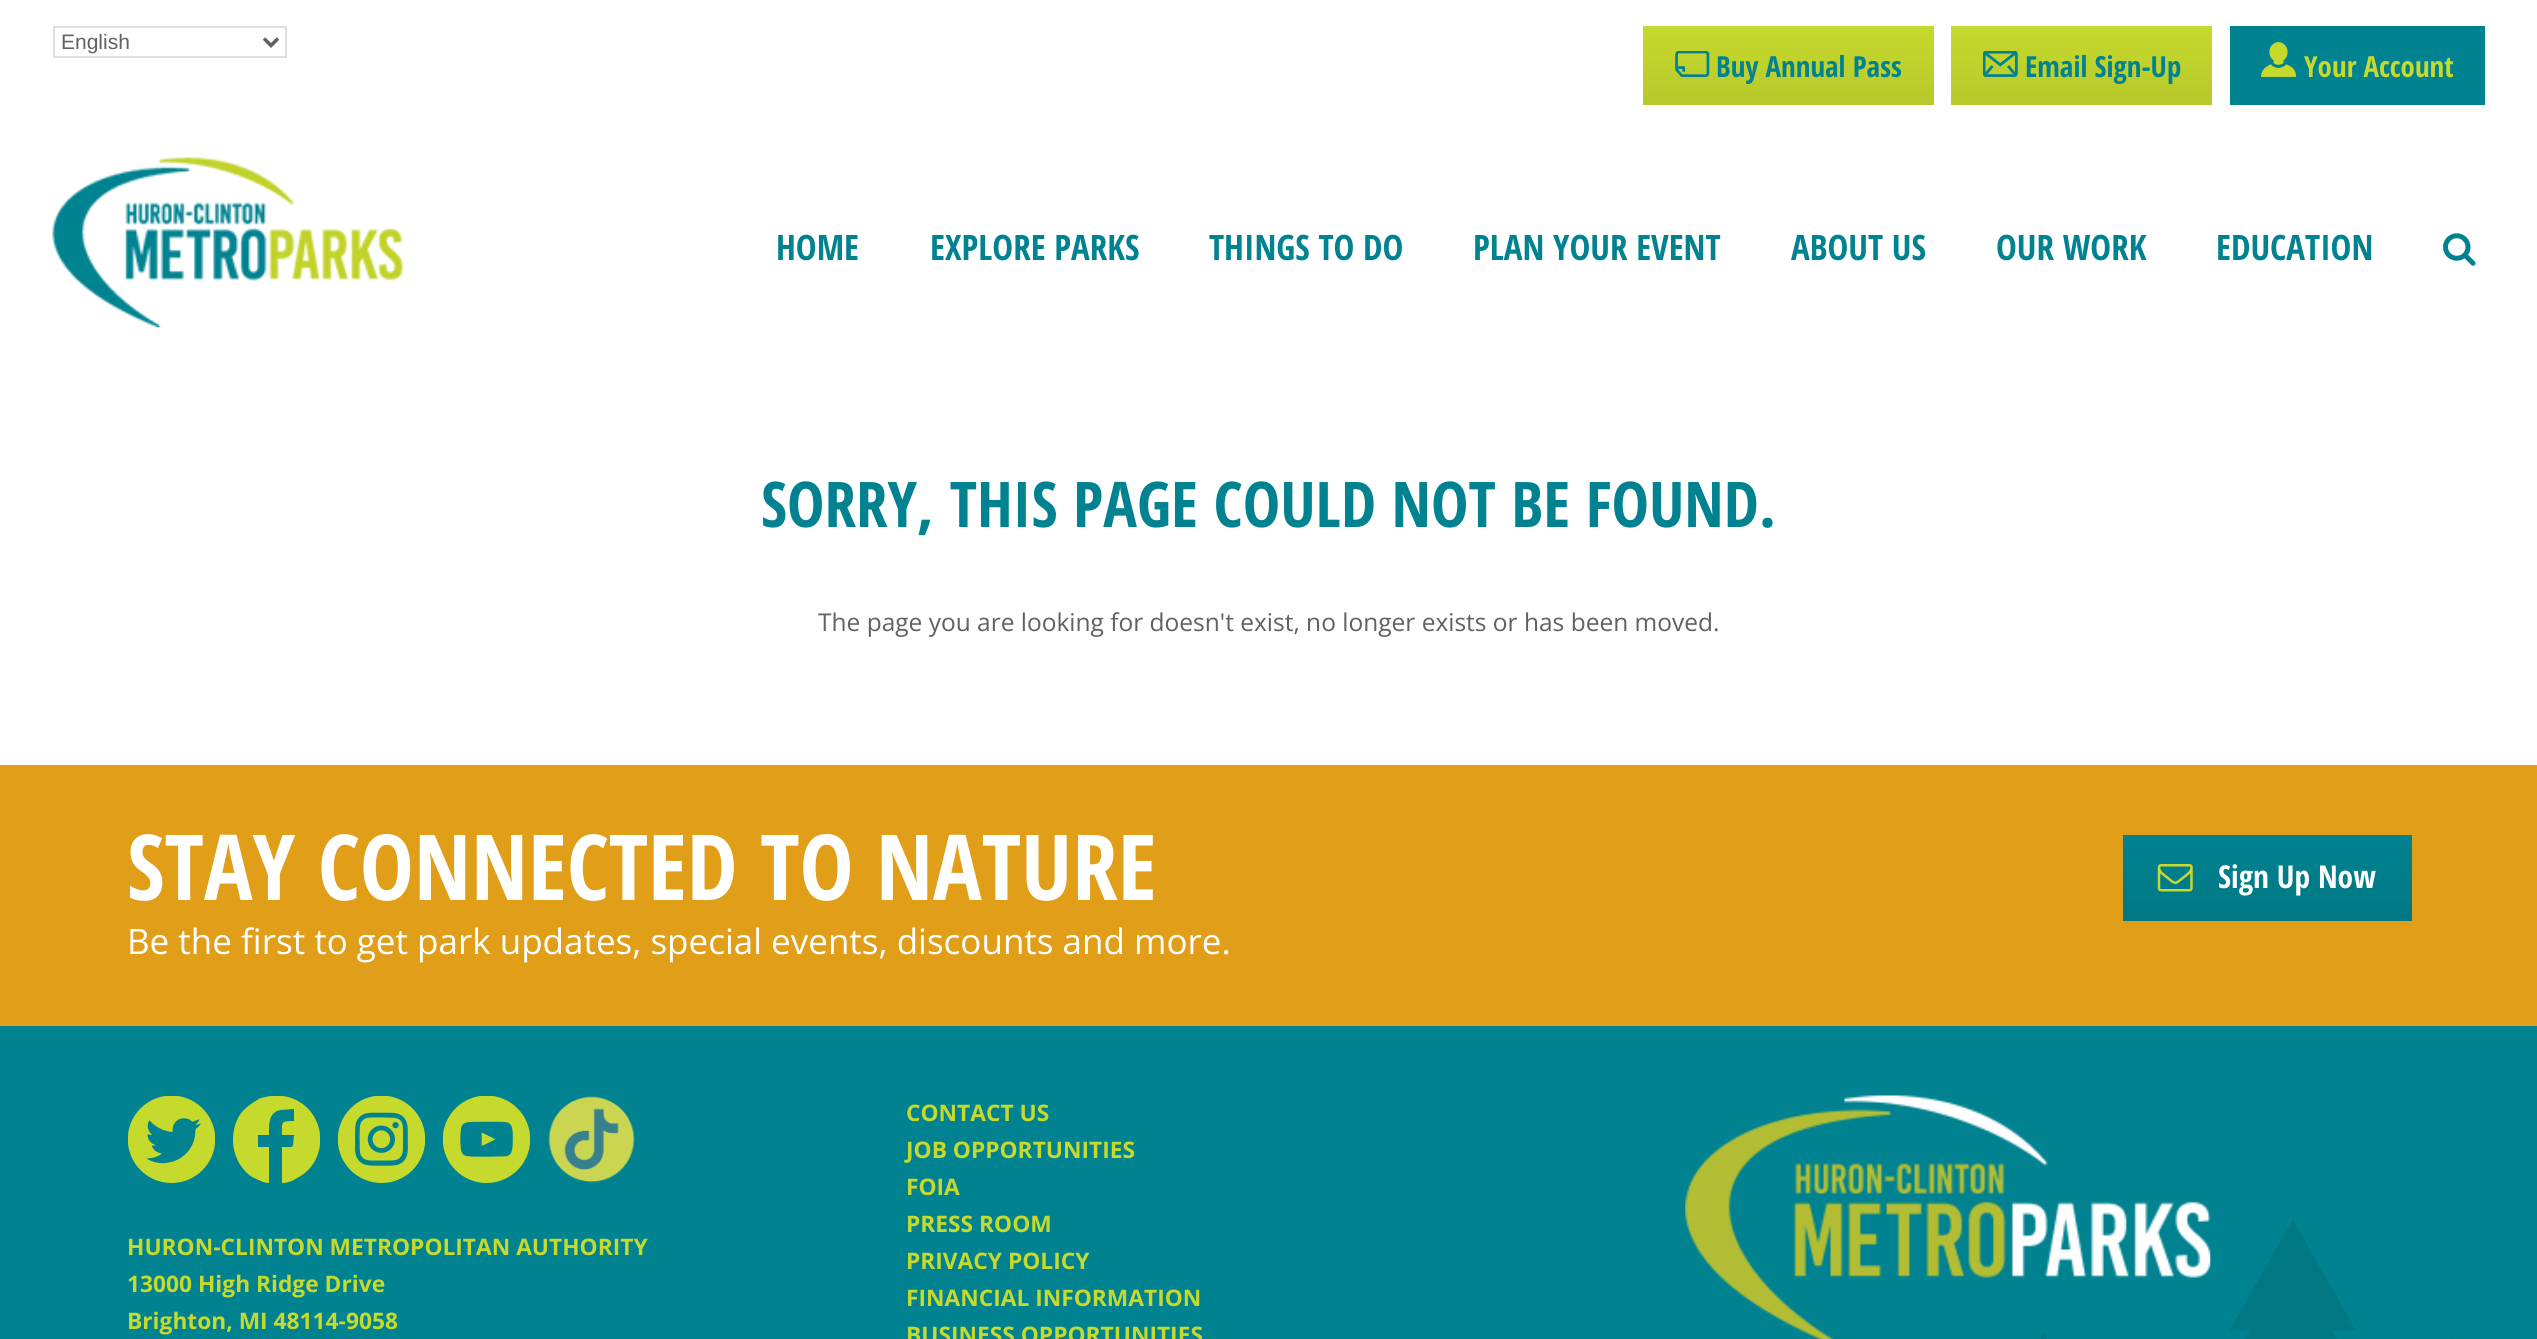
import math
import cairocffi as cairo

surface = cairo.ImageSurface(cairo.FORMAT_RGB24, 2537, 1339)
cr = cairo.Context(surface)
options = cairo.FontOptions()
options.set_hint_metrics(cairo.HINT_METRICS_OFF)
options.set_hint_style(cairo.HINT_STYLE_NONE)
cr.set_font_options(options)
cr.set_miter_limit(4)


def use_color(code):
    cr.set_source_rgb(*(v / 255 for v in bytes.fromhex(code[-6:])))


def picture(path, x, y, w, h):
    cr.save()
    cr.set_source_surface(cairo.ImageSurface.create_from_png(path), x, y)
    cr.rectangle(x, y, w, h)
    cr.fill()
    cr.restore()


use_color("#ffffff")
cr.paint()
cr.rectangle(54, 27, 232, 30)
use_color("#e0e0e0")
cr.stroke()
cr.new_path()
cr.move_to(264, 38.5)
cr.line_to(271, 45.5)
cr.line_to(278, 38.5)
use_color("#616161")
cr.set_line_width(3.5)
cr.stroke()
cr.select_font_face("Liberation Sans")
cr.set_font_size(21)
cr.move_to(61, 49)
cr.show_text("English")
gradient = cairo.LinearGradient(1789, 26, 1789, 105)
gradient.add_color_stop_rgba(0, 0.776, 0.851, 0.176, 1)
gradient.add_color_stop_rgba(1, 0.718, 0.788, 0.169, 1)
cr.set_source(gradient)
cr.rectangle(1643, 26, 291, 79)
cr.fill()
picture("img1.png", 1675, 51, 35, 26)
cr.select_font_face("Open Sans Condensed", cairo.FONT_SLANT_NORMAL, cairo.FONT_WEIGHT_BOLD)
cr.set_font_size(29)
use_color("#008290")
cr.move_to(1716, 77)
cr.show_text("Buy Annual Pass")
gradient = cairo.LinearGradient(2082, 26, 2082, 105)
gradient.add_color_stop_rgba(0, 0.776, 0.851, 0.176, 1)
gradient.add_color_stop_rgba(1, 0.718, 0.788, 0.169, 1)
cr.set_source(gradient)
cr.rectangle(1951, 26, 261, 79)
cr.fill()
picture("img2.png", 1983, 51, 35, 26)
use_color("#008290")
cr.move_to(2025, 77)
cr.show_text("Email Sign-Up")
cr.rectangle(2230, 26, 255, 79)
cr.fill()
picture("img3.png", 2261, 42, 35, 35)
use_color("#c6d92d")
cr.move_to(2304, 77)
cr.show_text("Your Account")
picture("img4.png", 52, 157, 351, 171)
cr.set_font_size(35)
use_color("#008290")
cr.move_to(776, 260)
cr.show_text("HOME")
cr.move_to(930, 260)
cr.show_text("EXPLORE PARKS")
cr.move_to(1209, 260)
cr.show_text("THINGS TO DO")
cr.move_to(1473, 260)
cr.show_text("PLAN YOUR EVENT")
cr.move_to(1791, 260)
cr.show_text("ABOUT US")
cr.move_to(1996, 260)
cr.show_text("OUR WORK")
cr.move_to(2216, 260)
cr.show_text("EDUCATION")
picture("img5.png", 2443, 233, 33, 33)
cr.set_font_size(63)
cr.move_to(761, 527)
cr.show_text("SORRY, THIS PAGE COULD NOT BE FOUND.")
cr.select_font_face("Open Sans")
cr.set_font_size(24.5)
use_color("#616161")
cr.move_to(818, 631)
cr.show_text("The page you are looking for doesn't exist, no longer exists or has been moved.")
use_color("#e09e19")
cr.rectangle(0, 765, 2537, 261)
cr.fill()
cr.select_font_face("Open Sans Condensed", cairo.FONT_SLANT_NORMAL, cairo.FONT_WEIGHT_BOLD)
cr.set_font_size(91)
use_color("#ffffff")
cr.move_to(127, 900)
cr.show_text("STAY CONNECTED TO NATURE")
cr.select_font_face("Open Sans")
cr.set_font_size(35)
cr.move_to(127, 954)
cr.show_text("Be the first to get park updates, special events, discounts and more.")
gradient = cairo.LinearGradient(2267, 835, 2267, 921)
gradient.add_color_stop_rgba(0, 0, 0.51, 0.565, 1)
gradient.add_color_stop_rgba(1, 0, 0.471, 0.518, 1)
cr.set_source(gradient)
cr.rectangle(2123, 835, 289, 86)
cr.fill()
picture("img6.png", 2157, 864, 36, 28)
cr.select_font_face("Open Sans Condensed", cairo.FONT_SLANT_NORMAL, cairo.FONT_WEIGHT_BOLD)
cr.set_font_size(31.5)
use_color("#ffffff")
cr.move_to(2218, 888)
cr.show_text("Sign Up Now")
use_color("#008290")
cr.rectangle(0, 1026, 2537, 313)
cr.fill()
picture("img7.png", 2040, 1220, 414, 119)
picture("img8.png", 128, 1096, 87, 87)
cr.save()
cr.rectangle(233, 1096, 87, 87)
cr.clip()
use_color("#c6d92d")
cr.new_path()
cr.move_to(259, 1099)
cr.curve_to(250, 1104, 242, 1110, 238, 1118)
cr.curve_to(228, 1138, 233, 1164, 252, 1177)
cr.curve_to(257, 1179, 263, 1183, 269, 1183)
cr.line_to(269, 1147)
cr.line_to(258, 1147)
cr.line_to(258, 1135)
cr.line_to(269, 1135)
cr.curve_to(269, 1125, 268, 1112, 281, 1110)
cr.line_to(294, 1109)
cr.line_to(294, 1121)
cr.curve_to(280, 1121, 282, 1122, 282, 1135)
cr.line_to(294, 1135)
cr.curve_to(292, 1149, 296, 1147, 282, 1147)
cr.line_to(282, 1183)
cr.curve_to(287, 1183, 293, 1181, 297, 1178)
cr.curve_to(329, 1162, 328, 1114, 294, 1099)
cr.curve_to(282, 1094, 270, 1095, 258, 1099)
cr.fill()
cr.restore()
picture("img9.png", 338, 1096, 87, 87)
picture("img10.png", 443, 1096, 87, 87)
picture("img11.png", 548, 1096, 87, 86)
cr.select_font_face("Open Sans", cairo.FONT_SLANT_NORMAL, cairo.FONT_WEIGHT_BOLD)
cr.set_font_size(22.75)
use_color("#c6d92d")
cr.move_to(127, 1255)
cr.show_text("HURON-CLINTON METROPOLITAN AUTHORITY")
cr.move_to(127, 1292)
cr.show_text("13000 High Ridge Drive")
cr.move_to(127, 1329)
cr.show_text("Brighton, MI 48114-9058")
cr.move_to(906, 1121)
cr.show_text("CONTACT US")
cr.move_to(906, 1158)
cr.show_text("JOB OPPORTUNITIES")
cr.move_to(906, 1195)
cr.show_text("FOIA")
cr.move_to(906, 1232)
cr.show_text("PRESS ROOM")
cr.move_to(906, 1269)
cr.show_text("PRIVACY POLICY")
cr.move_to(906, 1306)
cr.show_text("FINANCIAL INFORMATION")
cr.move_to(906, 1343)
cr.show_text("BUSINESS OPPORTUNITIES")
picture("img12.png", 1685, 1095, 526, 244)
surface.write_to_png("result.png")
